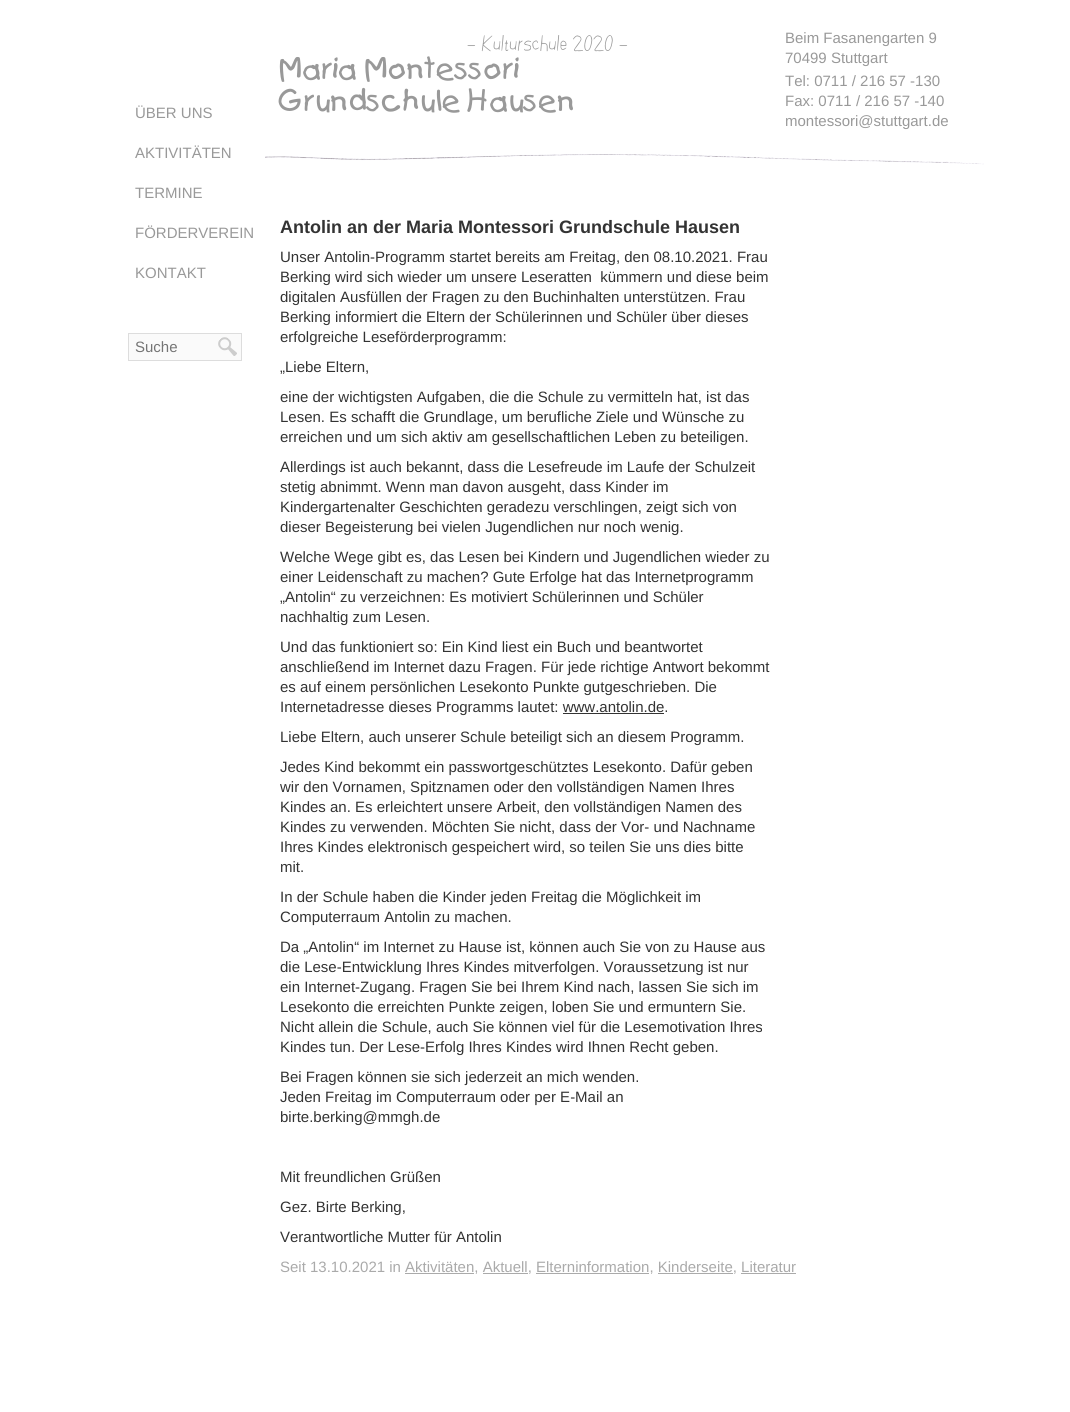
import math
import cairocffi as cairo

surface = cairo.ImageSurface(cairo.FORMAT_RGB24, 1070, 1412)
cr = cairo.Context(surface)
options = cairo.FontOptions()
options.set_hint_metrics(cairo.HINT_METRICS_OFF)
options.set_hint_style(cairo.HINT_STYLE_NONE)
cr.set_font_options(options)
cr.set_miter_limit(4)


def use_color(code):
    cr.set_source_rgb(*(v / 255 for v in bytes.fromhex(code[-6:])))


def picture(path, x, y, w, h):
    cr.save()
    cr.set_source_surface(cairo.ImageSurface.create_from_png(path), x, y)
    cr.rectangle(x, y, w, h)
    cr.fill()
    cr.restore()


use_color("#ffffff")
cr.paint()
cr.select_font_face("Liberation Sans")
cr.set_font_size(15)
use_color("#999999")
cr.move_to(135, 118)
cr.show_text("ÜBER UNS")
cr.move_to(135, 158)
cr.show_text("AKTIVITÄTEN")
cr.move_to(135, 198)
cr.show_text("TERMINE")
cr.move_to(135, 238)
cr.show_text("FÖRDERVEREIN")
cr.move_to(135, 278)
cr.show_text("KONTAKT")
use_color("#fafafa")
cr.rectangle(128.5, 333.5, 113, 27)
cr.fill_preserve()
use_color("#dddddd")
cr.set_line_width(1)
cr.stroke()
use_color("#757575")
cr.move_to(135, 352)
cr.show_text("Suche")
picture("img1.png", 218, 337, 19, 19)
picture("img2.png", 265, 154, 719, 11)
cr.select_font_face("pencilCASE")
cr.set_font_size(20)
use_color("#999999")
cr.move_to(467, 51)
cr.show_text("- Kulturschule 2020 -")
cr.select_font_face("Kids")
cr.set_font_size(28)
cr.move_to(278, 79)
cr.show_text("Maria Montessori")
cr.move_to(278, 111)
cr.show_text("Grundschule Hausen")
cr.select_font_face("Liberation Sans")
cr.set_font_size(15)
cr.move_to(785, 43)
cr.show_text("Beim Fasanengarten 9")
cr.move_to(785, 63)
cr.show_text("70499 Stuttgart")
cr.move_to(785, 86)
cr.show_text("Tel: 0711 / 216 57 -130")
cr.move_to(785, 106)
cr.show_text("Fax: 0711 / 216 57 -140")
cr.move_to(785, 126)
cr.show_text("montessori@stuttgart.de")
cr.select_font_face("Liberation Sans", cairo.FONT_SLANT_NORMAL, cairo.FONT_WEIGHT_BOLD)
cr.set_font_size(18)
use_color("#333333")
cr.move_to(280, 233)
cr.show_text("Antolin an der Maria Montessori Grundschule Hausen")
cr.select_font_face("Liberation Sans")
cr.set_font_size(15)
cr.move_to(280, 262)
cr.show_text("Unser Antolin-Programm startet bereits am Freitag, den 08.10.2021. Frau")
cr.move_to(280, 282)
cr.show_text("Berking wird sich wieder um unsere Leseratten  kümmern und diese beim")
cr.move_to(280, 302)
cr.show_text("digitalen Ausfüllen der Fragen zu den Buchinhalten unterstützen. Frau")
cr.move_to(280, 322)
cr.show_text("Berking informiert die Eltern der Schülerinnen und Schüler über dieses")
cr.move_to(280, 342)
cr.show_text("erfolgreiche Leseförderprogramm:")
cr.move_to(280, 372)
cr.show_text("„Liebe Eltern,")
cr.move_to(280, 402)
cr.show_text("eine der wichtigsten Aufgaben, die die Schule zu vermitteln hat, ist das")
cr.move_to(280, 422)
cr.show_text("Lesen. Es schafft die Grundlage, um berufliche Ziele und Wünsche zu")
cr.move_to(280, 442)
cr.show_text("erreichen und um sich aktiv am gesellschaftlichen Leben zu beteiligen.")
cr.move_to(280, 472)
cr.show_text("Allerdings ist auch bekannt, dass die Lesefreude im Laufe der Schulzeit")
cr.move_to(280, 492)
cr.show_text("stetig abnimmt. Wenn man davon ausgeht, dass Kinder im")
cr.move_to(280, 512)
cr.show_text("Kindergartenalter Geschichten geradezu verschlingen, zeigt sich von")
cr.move_to(280, 532)
cr.show_text("dieser Begeisterung bei vielen Jugendlichen nur noch wenig.")
cr.move_to(280, 562)
cr.show_text("Welche Wege gibt es, das Lesen bei Kindern und Jugendlichen wieder zu")
cr.move_to(280, 582)
cr.show_text("einer Leidenschaft zu machen? Gute Erfolge hat das Internetprogramm")
cr.move_to(280, 602)
cr.show_text("„Antolin“ zu verzeichnen: Es motiviert Schülerinnen und Schüler")
cr.move_to(280, 622)
cr.show_text("nachhaltig zum Lesen.")
cr.move_to(280, 652)
cr.show_text("Und das funktioniert so: Ein Kind liest ein Buch und beantwortet")
cr.move_to(280, 672)
cr.show_text("anschließend im Internet dazu Fragen. Für jede richtige Antwort bekommt")
cr.move_to(280, 692)
cr.show_text("es auf einem persönlichen Lesekonto Punkte gutgeschrieben. Die")
cr.move_to(280, 712)
cr.show_text("Internetadresse dieses Programms lautet: www.antolin.de.")
cr.rectangle(563, 713, 101, 1)
cr.fill()
cr.move_to(280, 742)
cr.show_text("Liebe Eltern, auch unserer Schule beteiligt sich an diesem Programm.")
cr.move_to(280, 772)
cr.show_text("Jedes Kind bekommt ein passwortgeschütztes Lesekonto. Dafür geben")
cr.move_to(280, 792)
cr.show_text("wir den Vornamen, Spitznamen oder den vollständigen Namen Ihres")
cr.move_to(280, 812)
cr.show_text("Kindes an. Es erleichtert unsere Arbeit, den vollständigen Namen des")
cr.move_to(280, 832)
cr.show_text("Kindes zu verwenden. Möchten Sie nicht, dass der Vor- und Nachname")
cr.move_to(280, 852)
cr.show_text("Ihres Kindes elektronisch gespeichert wird, so teilen Sie uns dies bitte")
cr.move_to(280, 872)
cr.show_text("mit.")
cr.move_to(280, 902)
cr.show_text("In der Schule haben die Kinder jeden Freitag die Möglichkeit im")
cr.move_to(280, 922)
cr.show_text("Computerraum Antolin zu machen.")
cr.move_to(280, 952)
cr.show_text("Da „Antolin“ im Internet zu Hause ist, können auch Sie von zu Hause aus")
cr.move_to(280, 972)
cr.show_text("die Lese-Entwicklung Ihres Kindes mitverfolgen. Voraussetzung ist nur")
cr.move_to(280, 992)
cr.show_text("ein Internet-Zugang. Fragen Sie bei Ihrem Kind nach, lassen Sie sich im")
cr.move_to(280, 1012)
cr.show_text("Lesekonto die erreichten Punkte zeigen, loben Sie und ermuntern Sie.")
cr.move_to(280, 1032)
cr.show_text("Nicht allein die Schule, auch Sie können viel für die Lesemotivation Ihres")
cr.move_to(280, 1052)
cr.show_text("Kindes tun. Der Lese-Erfolg Ihres Kindes wird Ihnen Recht geben.")
cr.move_to(280, 1082)
cr.show_text("Bei Fragen können sie sich jederzeit an mich wenden.")
cr.move_to(280, 1102)
cr.show_text("Jeden Freitag im Computerraum oder per E-Mail an")
cr.move_to(280, 1122)
cr.show_text("birte.berking@mmgh.de")
cr.move_to(280, 1182)
cr.show_text("Mit freundlichen Grüßen")
cr.move_to(280, 1212)
cr.show_text("Gez. Birte Berking,")
cr.move_to(280, 1242)
cr.show_text("Verantwortliche Mutter für Antolin")
use_color("#aaaaaa")
cr.move_to(280, 1272)
cr.show_text("Seit 13.10.2021 in Aktivitäten, Aktuell, Elterninformation, Kinderseite, Literatur")
cr.rectangle(405, 1273, 69, 1)
cr.fill()
cr.rectangle(483, 1273, 45, 1)
cr.fill()
cr.rectangle(536, 1273, 113, 1)
cr.fill()
cr.rectangle(658, 1273, 75, 1)
cr.fill()
cr.rectangle(741, 1273, 55, 1)
cr.fill()
surface.write_to_png("result.png")
